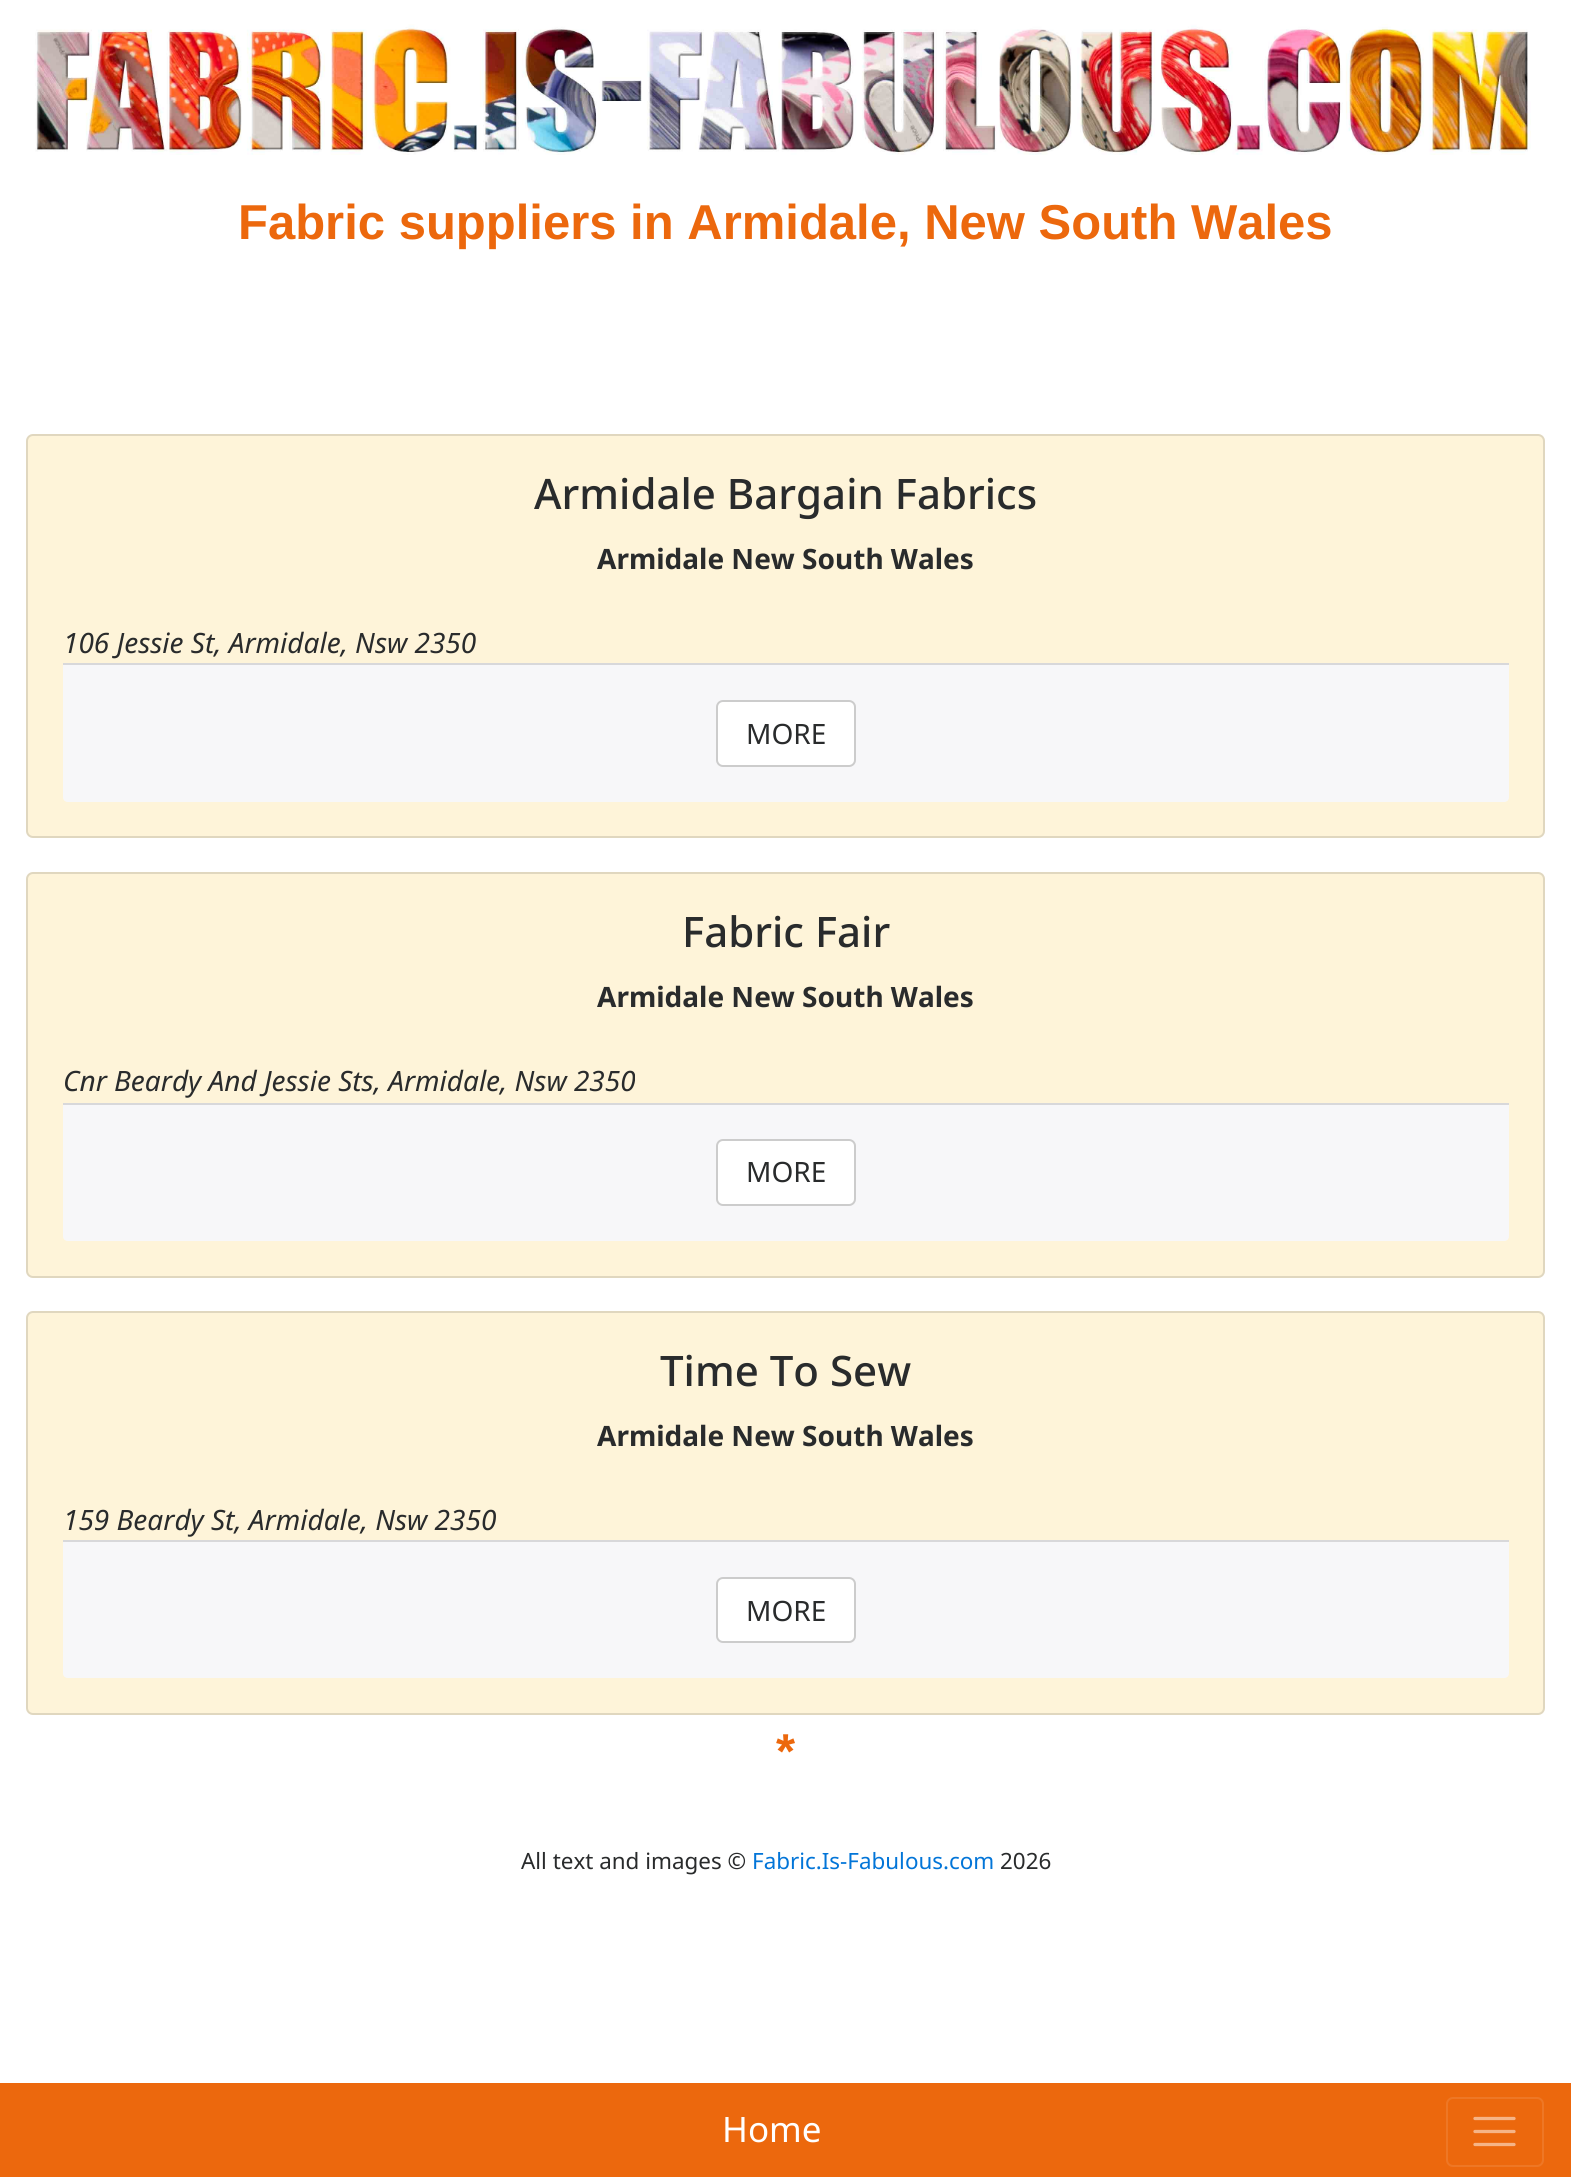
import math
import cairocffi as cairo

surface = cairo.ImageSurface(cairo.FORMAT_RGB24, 1571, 2177)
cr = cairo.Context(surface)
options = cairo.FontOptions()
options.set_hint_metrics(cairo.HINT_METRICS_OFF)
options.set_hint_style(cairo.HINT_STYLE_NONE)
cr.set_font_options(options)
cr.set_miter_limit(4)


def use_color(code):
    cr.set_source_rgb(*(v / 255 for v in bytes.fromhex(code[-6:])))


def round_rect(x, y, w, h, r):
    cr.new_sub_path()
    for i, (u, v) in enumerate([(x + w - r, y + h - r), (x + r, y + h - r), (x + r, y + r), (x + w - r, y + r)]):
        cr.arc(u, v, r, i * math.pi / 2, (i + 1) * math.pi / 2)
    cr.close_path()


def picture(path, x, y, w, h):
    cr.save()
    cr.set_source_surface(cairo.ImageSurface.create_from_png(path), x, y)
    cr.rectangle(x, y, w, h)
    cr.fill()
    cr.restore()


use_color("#ffffff")
cr.paint()
picture("img1.png", 34, 24, 1497, 131)
cr.select_font_face("Liberation Sans", cairo.FONT_SLANT_NORMAL, cairo.FONT_WEIGHT_BOLD)
cr.set_font_size(49)
use_color("#ec680d")
cr.move_to(238, 239)
cr.show_text("Fabric suppliers in Armidale, New South Wales")
use_color("#fef4d9")
round_rect(26, 434, 1519, 404, 7)
cr.fill()
round_rect(27, 435, 1517, 402, 6)
cr.set_source_rgba(0, 0, 0, 0.12)
cr.stroke()
cr.select_font_face("Noto Sans Medium")
cr.set_font_size(42)
use_color("#292b2c")
cr.move_to(534, 509)
cr.show_text("Armidale Bargain Fabrics")
cr.select_font_face("Noto Sans", cairo.FONT_SLANT_NORMAL, cairo.FONT_WEIGHT_BOLD)
cr.set_font_size(28)
cr.move_to(597, 569)
cr.show_text("Armidale New South Wales")
cr.select_font_face("Noto Sans", cairo.FONT_SLANT_ITALIC)
cr.move_to(63, 653)
cr.show_text("106 Jessie St, Armidale, Nsw 2350")
use_color("#f7f7f9")
cr.new_path()
cr.move_to(63, 663)
cr.line_to(1509, 663)
cr.line_to(1509, 797)
cr.curve_to(1509, 800, 1507, 802, 1504, 802)
cr.line_to(68, 802)
cr.curve_to(65, 802, 63, 800, 63, 797)
cr.close_path()
cr.fill()
use_color("#d8d8da")
cr.rectangle(63, 663, 1446, 2)
cr.fill()
use_color("#ffffff")
round_rect(717, 701, 138, 65, 6)
cr.fill_preserve()
use_color("#cccccc")
cr.stroke()
cr.select_font_face("Noto Sans")
use_color("#292b2c")
cr.move_to(746, 744)
cr.show_text("MORE")
use_color("#fef4d9")
round_rect(26, 872, 1519, 406, 7)
cr.fill()
round_rect(27, 873, 1517, 404, 6)
cr.set_source_rgba(0, 0, 0, 0.12)
cr.stroke()
cr.select_font_face("Noto Sans Medium")
cr.set_font_size(42)
use_color("#292b2c")
cr.move_to(682, 947)
cr.show_text("Fabric Fair")
cr.select_font_face("Noto Sans", cairo.FONT_SLANT_NORMAL, cairo.FONT_WEIGHT_BOLD)
cr.set_font_size(28)
cr.move_to(597, 1007)
cr.show_text("Armidale New South Wales")
cr.select_font_face("Noto Sans", cairo.FONT_SLANT_ITALIC)
cr.move_to(63, 1091)
cr.show_text("Cnr Beardy And Jessie Sts, Armidale, Nsw 2350")
use_color("#f7f7f9")
cr.new_path()
cr.move_to(63, 1103)
cr.line_to(1509, 1103)
cr.line_to(1509, 1236)
cr.curve_to(1509, 1239, 1507, 1241, 1504, 1241)
cr.line_to(68, 1241)
cr.curve_to(65, 1241, 63, 1239, 63, 1236)
cr.close_path()
cr.fill()
use_color("#d8d8da")
cr.rectangle(63, 1103, 1446, 2)
cr.fill()
use_color("#ffffff")
round_rect(717, 1140, 138, 65, 6)
cr.fill_preserve()
use_color("#cccccc")
cr.stroke()
cr.select_font_face("Noto Sans")
use_color("#292b2c")
cr.move_to(746, 1182)
cr.show_text("MORE")
use_color("#fef4d9")
round_rect(26, 1311, 1519, 404, 7)
cr.fill()
round_rect(27, 1312, 1517, 402, 6)
cr.set_source_rgba(0, 0, 0, 0.12)
cr.stroke()
cr.select_font_face("Noto Sans Medium")
cr.set_font_size(42)
use_color("#292b2c")
cr.move_to(660, 1386)
cr.show_text("Time To Sew")
cr.select_font_face("Noto Sans", cairo.FONT_SLANT_NORMAL, cairo.FONT_WEIGHT_BOLD)
cr.set_font_size(28)
cr.move_to(597, 1446)
cr.show_text("Armidale New South Wales")
cr.select_font_face("Noto Sans", cairo.FONT_SLANT_ITALIC)
cr.move_to(63, 1530)
cr.show_text("159 Beardy St, Armidale, Nsw 2350")
use_color("#f7f7f9")
cr.new_path()
cr.move_to(63, 1540)
cr.line_to(1509, 1540)
cr.line_to(1509, 1673)
cr.curve_to(1509, 1676, 1507, 1678, 1504, 1678)
cr.line_to(68, 1678)
cr.curve_to(65, 1678, 63, 1676, 63, 1673)
cr.close_path()
cr.fill()
use_color("#d8d8da")
cr.rectangle(63, 1540, 1446, 2)
cr.fill()
use_color("#ffffff")
round_rect(717, 1578, 138, 64, 6)
cr.fill_preserve()
use_color("#cccccc")
cr.stroke()
cr.select_font_face("Noto Sans")
use_color("#292b2c")
cr.move_to(746, 1621)
cr.show_text("MORE")
cr.select_font_face("Liberation Sans", cairo.FONT_SLANT_NORMAL, cairo.FONT_WEIGHT_BOLD)
cr.set_font_size(49)
use_color("#ec680d")
cr.move_to(776, 1768)
cr.show_text("*")
cr.select_font_face("Noto Sans")
cr.set_font_size(22.4)
use_color("#292b2c")
cr.move_to(521, 1869)
cr.show_text("All text and images ©")
use_color("#0275d8")
cr.move_to(752, 1869)
cr.show_text("Fabric.Is-Fabulous.com")
use_color("#292b2c")
cr.move_to(1000, 1869)
cr.show_text("2026")
use_color("#ec680d")
cr.rectangle(0, 2083, 1571, 94)
cr.fill()
cr.set_font_size(35)
use_color("#ffffff")
cr.move_to(722, 2142)
cr.show_text("Home")
round_rect(1447, 2098, 96, 68, 6)
use_color("#ee7725")
cr.stroke()
cr.new_path()
cr.move_to(1475, 2118.5)
cr.line_to(1514, 2118.5)
cr.move_to(1475, 2131.5)
cr.line_to(1514, 2131.5)
cr.move_to(1475, 2144.5)
cr.line_to(1514, 2144.5)
use_color("#f6b486")
cr.set_line_width(3.3)
cr.set_line_cap(cairo.LINE_CAP_ROUND)
cr.stroke()
surface.write_to_png("result.png")
